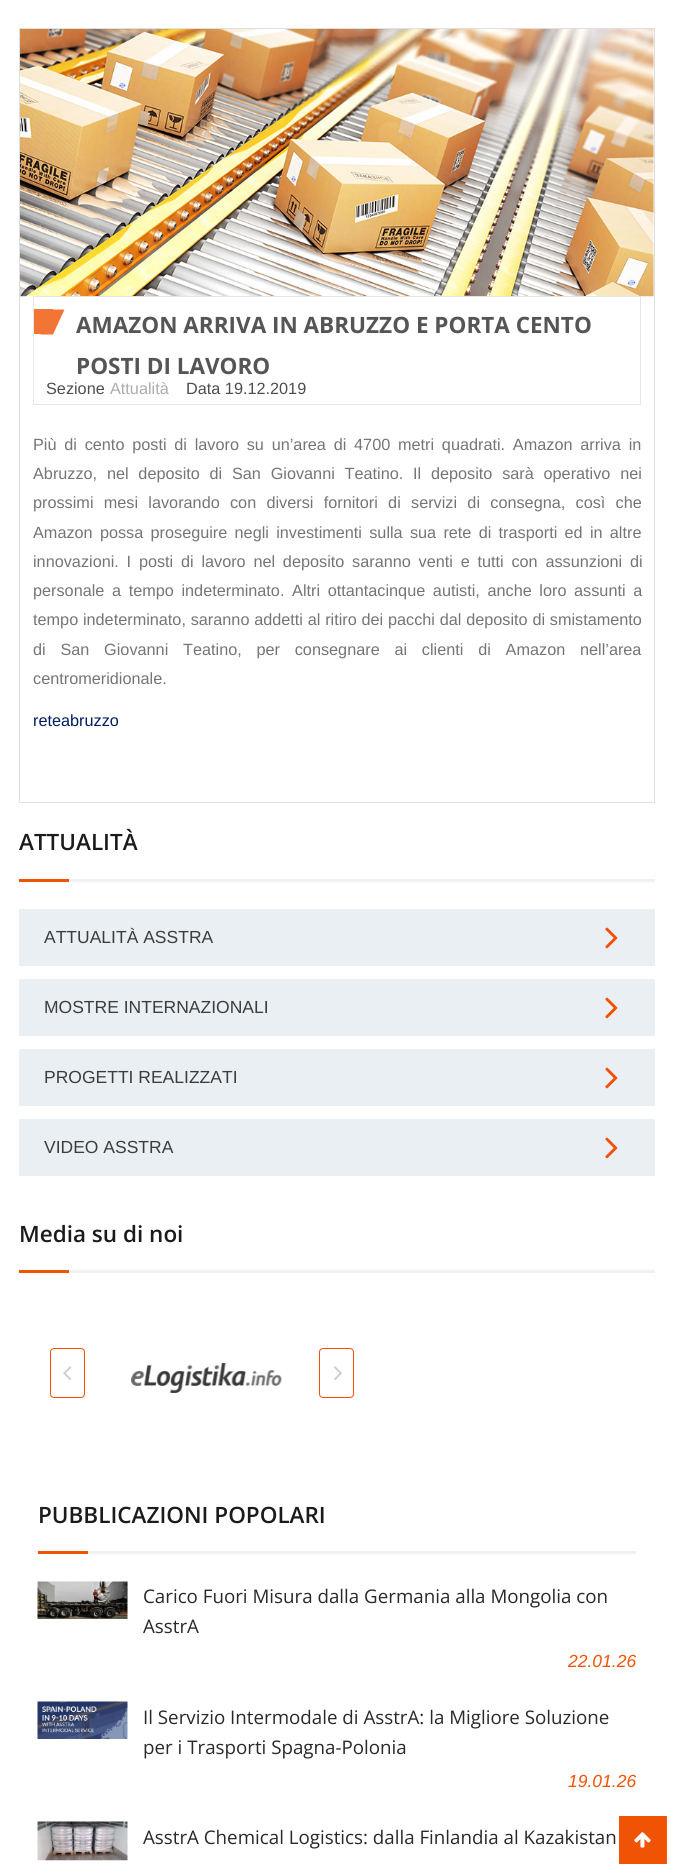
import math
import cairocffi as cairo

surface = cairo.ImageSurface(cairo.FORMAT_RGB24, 673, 1871)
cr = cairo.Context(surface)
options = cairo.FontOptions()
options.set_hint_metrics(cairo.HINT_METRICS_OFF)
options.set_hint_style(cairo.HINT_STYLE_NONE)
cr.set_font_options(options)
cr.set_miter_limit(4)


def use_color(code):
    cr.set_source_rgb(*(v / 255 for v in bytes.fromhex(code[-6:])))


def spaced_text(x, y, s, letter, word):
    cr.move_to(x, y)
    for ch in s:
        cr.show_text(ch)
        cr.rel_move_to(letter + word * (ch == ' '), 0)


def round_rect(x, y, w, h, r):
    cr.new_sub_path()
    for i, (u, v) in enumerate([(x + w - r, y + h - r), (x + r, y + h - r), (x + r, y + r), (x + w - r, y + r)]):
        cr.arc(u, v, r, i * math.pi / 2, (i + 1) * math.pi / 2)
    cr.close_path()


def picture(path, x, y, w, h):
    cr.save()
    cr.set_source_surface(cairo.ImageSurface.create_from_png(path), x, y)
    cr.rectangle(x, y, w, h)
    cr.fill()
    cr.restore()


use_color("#ffffff")
cr.paint()
cr.rectangle(19.5, 28.5, 635, 774)
use_color("#dee0e3")
cr.set_line_width(1)
cr.stroke()
picture("img1.png", 20, 29, 634, 268)
cr.set_source_rgba(1, 1, 1, 0.8)
cr.rectangle(33, 296, 608, 1)
cr.fill()
cr.rectangle(33.5, 296.5, 607, 108)
cr.set_source_rgba(0.878, 0.878, 0.878, 0.8)
cr.stroke()
use_color("#f37536")
cr.rectangle(34, 309, 19, 25)
cr.fill()
cr.new_path()
cr.move_to(52, 309.5)
cr.line_to(64.5, 309.5)
cr.line_to(53, 334.5)
cr.line_to(40.5, 334.5)
cr.close_path()
cr.fill()
cr.select_font_face("Open Sans", cairo.FONT_SLANT_NORMAL, cairo.FONT_WEIGHT_BOLD)
cr.set_font_size(22.5)
use_color("#555555")
cr.move_to(76, 333)
cr.show_text("AMAZON ARRIVA IN ABRUZZO E PORTA CENTO")
cr.move_to(76, 374)
cr.show_text("POSTI DI LAVORO")
cr.select_font_face("Liberation Sans")
cr.set_font_size(16.25)
use_color("#4d4d4d")
cr.move_to(46, 394)
cr.show_text("Sezione")
use_color("#acacac")
cr.move_to(110, 394)
cr.show_text("Attualità")
use_color("#4d4d4d")
cr.move_to(186, 394)
cr.show_text("Datа 19.12.2019")
use_color("#757575")
spaced_text(33, 450, "Più di cento posti di lavoro su un’area di 4700 metri quadrati. Amazon arriva in", 0, 3.25)
spaced_text(33, 479, "Abruzzo, nel deposito di San Giovanni Teatino. Il deposito sarà operativo nei", 0, 5.25)
spaced_text(33, 508, "prossimi mesi lavorando con diversi fornitori di servizi di consegna, così che", 0, 5.75)
spaced_text(33, 538, "Amazon possa proseguire negli investimenti sulla sua rete di trasporti ed in altre", 0, 2.75)
spaced_text(33, 567, "innovazioni. I posti di lavoro nel deposito saranno venti e tutti con assunzioni di", 0, 3.25)
spaced_text(33, 596, "personale a tempo indeterminato. Altri ottantacinque autisti, anche loro assunti a", 0, 3.1)
spaced_text(33, 625, "tempo indeterminato, saranno addetti al ritiro dei pacchi dal deposito di smistamento", 0, 0.25)
spaced_text(33, 655, "di San Giovanni Teatino, per consegnare ai clienti di Amazon nell’area", 0, 10.25)
cr.move_to(33, 684)
cr.show_text("centromeridionale.")
use_color("#001d64")
cr.move_to(33, 726)
cr.show_text("reteabruzzo")
cr.select_font_face("Open Sans SemiBold")
cr.set_font_size(22.5)
use_color("#1b1b1b")
cr.move_to(19, 850)
cr.show_text("ATTUALITÀ")
use_color("#f05304")
cr.rectangle(19, 879, 50, 3)
cr.fill()
use_color("#f1f1f1")
cr.rectangle(69, 879, 586, 3)
cr.fill()
use_color("#eaeff3")
cr.rectangle(19, 909, 636, 57)
cr.fill()
cr.select_font_face("Liberation Sans")
cr.set_font_size(17.5)
use_color("#3d3d3d")
cr.move_to(44, 943)
cr.show_text("ATTUALITÀ ASSTRA")
picture("img2.png", 605, 927, 13, 22)
use_color("#eaeff3")
cr.rectangle(19, 979, 636, 57)
cr.fill()
use_color("#3d3d3d")
cr.move_to(44, 1013)
cr.show_text("MOSTRE INTERNAZIONALI")
picture("img2.png", 605, 997, 13, 22)
use_color("#eaeff3")
cr.rectangle(19, 1049, 636, 57)
cr.fill()
use_color("#3d3d3d")
cr.move_to(44, 1083)
cr.show_text("PROGETTI REALIZZATI")
picture("img2.png", 605, 1067, 13, 22)
use_color("#eaeff3")
cr.rectangle(19, 1119, 636, 57)
cr.fill()
use_color("#3d3d3d")
cr.move_to(44, 1153)
cr.show_text("VIDEO ASSTRA")
picture("img2.png", 605, 1137, 13, 22)
cr.select_font_face("Open Sans SemiBold")
cr.set_font_size(22.5)
use_color("#1b1b1b")
cr.move_to(19, 1242)
cr.show_text("Media su di noi")
use_color("#f05304")
cr.rectangle(19, 1270, 50, 3)
cr.fill()
use_color("#f1f1f1")
cr.rectangle(69, 1270, 586, 3)
cr.fill()
round_rect(50.5, 1348.5, 34, 49, 3.5)
use_color("#f05304")
cr.stroke()
picture("img3.png", 63, 1366, 9, 14)
round_rect(319.5, 1348.5, 34, 49, 3.5)
cr.stroke()
picture("img4.png", 334, 1366, 8, 14)
picture("img5.png", 131, 1363, 151, 30)
use_color("#1b1b1b")
cr.move_to(38, 1523)
cr.show_text("PUBBLICAZIONI POPOLARI")
use_color("#f05304")
cr.rectangle(38, 1551, 50, 3)
cr.fill()
use_color("#f1f1f1")
cr.rectangle(88, 1551, 548, 3)
cr.fill()
picture("img6.png", 37, 1581, 91, 38)
cr.select_font_face("Open Sans")
cr.set_font_size(18.75)
use_color("#292929")
cr.move_to(143, 1603)
cr.show_text("Carico Fuori Misura dalla Germania alla Mongolia con")
cr.move_to(143, 1633)
cr.show_text("AsstrA")
cr.select_font_face("Liberation Sans", cairo.FONT_SLANT_ITALIC)
cr.set_font_size(17.5)
use_color("#f05304")
cr.move_to(568, 1667)
cr.show_text("22.01.26")
picture("img7.png", 37, 1701, 91, 38)
cr.select_font_face("Open Sans")
cr.set_font_size(18.75)
use_color("#292929")
cr.move_to(143, 1724)
cr.show_text("Il Servizio Intermodale di AsstrA: la Migliore Soluzione")
cr.move_to(143, 1754)
cr.show_text("per i Trasporti Spagna-Polonia")
cr.select_font_face("Liberation Sans", cairo.FONT_SLANT_ITALIC)
cr.set_font_size(17.5)
use_color("#f05304")
cr.move_to(568, 1787)
cr.show_text("19.01.26")
picture("img8.png", 37, 1821, 91, 40)
cr.select_font_face("Open Sans")
cr.set_font_size(18.75)
use_color("#292929")
cr.move_to(143, 1844)
cr.show_text("AsstrA Chemical Logistics: dalla Finlandia al Kazakistan")
use_color("#f05304")
cr.rectangle(619, 1816, 48, 48)
cr.fill()
picture("img9.png", 634, 1832, 17, 16)
surface.write_to_png("result.png")
